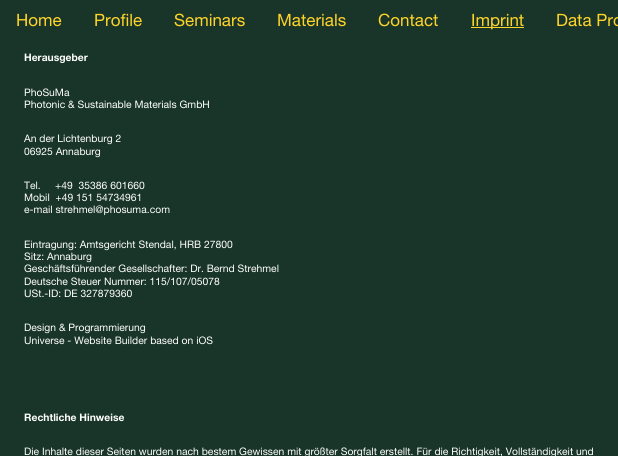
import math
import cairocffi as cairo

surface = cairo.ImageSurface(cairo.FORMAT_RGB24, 618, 456)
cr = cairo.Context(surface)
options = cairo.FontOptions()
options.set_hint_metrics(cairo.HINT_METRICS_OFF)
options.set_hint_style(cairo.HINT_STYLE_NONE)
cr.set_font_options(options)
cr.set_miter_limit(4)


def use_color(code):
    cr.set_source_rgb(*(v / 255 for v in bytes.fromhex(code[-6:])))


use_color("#193529")
cr.paint()
cr.select_font_face("Helvetica Neue")
cr.set_font_size(17)
use_color("#ffd429")
cr.move_to(16, 26)
cr.show_text("Home")
cr.move_to(94, 26)
cr.show_text("Profile")
cr.move_to(174, 26)
cr.show_text("Seminars")
cr.move_to(277, 26)
cr.show_text("Materials")
cr.move_to(378, 26)
cr.show_text("Contact")
cr.rectangle(471, 27, 53, 1)
cr.fill()
cr.move_to(471, 26)
cr.show_text("Imprint")
cr.move_to(556, 26)
cr.show_text("Data Pro")
cr.select_font_face("Helvetica Neue", cairo.FONT_SLANT_NORMAL, cairo.FONT_WEIGHT_BOLD)
cr.set_font_size(10.35)
use_color("#ffffff")
cr.move_to(24, 61)
cr.show_text("Herausgeber")
cr.select_font_face("Helvetica Neue")
cr.move_to(24, 96)
cr.show_text("PhoSuMa")
cr.move_to(24, 108)
cr.show_text("Photonic & Sustainable Materials GmbH")
cr.move_to(24, 142)
cr.show_text("An der Lichtenburg 2")
cr.move_to(24, 155)
cr.show_text("06925 Annaburg")
cr.move_to(24, 189)
cr.show_text("Tel.     +49  35386 601660")
cr.move_to(24, 201)
cr.show_text("Mobil  +49 151 54734961")
cr.move_to(24, 213)
cr.show_text("e-mail strehmel@phosuma.com")
cr.move_to(24, 248)
cr.show_text("Eintragung: Amtsgericht Stendal, HRB 27800")
cr.move_to(24, 260)
cr.show_text("Sitz: Annaburg")
cr.move_to(24, 272)
cr.show_text("Geschäftsführender Gesellschafter: Dr. Bernd Strehmel")
cr.move_to(24, 285)
cr.show_text("Deutsche Steuer Nummer: 115/107/05078")
cr.move_to(24, 297)
cr.show_text("USt.-ID: DE 327879360")
cr.move_to(24, 331)
cr.show_text("Design & Programmierung")
cr.move_to(24, 344)
cr.show_text("Universe - Website Builder based on iOS")
cr.select_font_face("Helvetica Neue", cairo.FONT_SLANT_NORMAL, cairo.FONT_WEIGHT_BOLD)
cr.move_to(24, 421)
cr.show_text("Rechtliche Hinweise")
cr.select_font_face("Helvetica Neue")
cr.move_to(24, 455)
cr.show_text("Die Inhalte dieser Seiten wurden nach bestem Gewissen mit größter Sorgfalt erstellt. Für die Richtigkeit, Vollständigkeit und")
surface.write_to_png("result.png")
